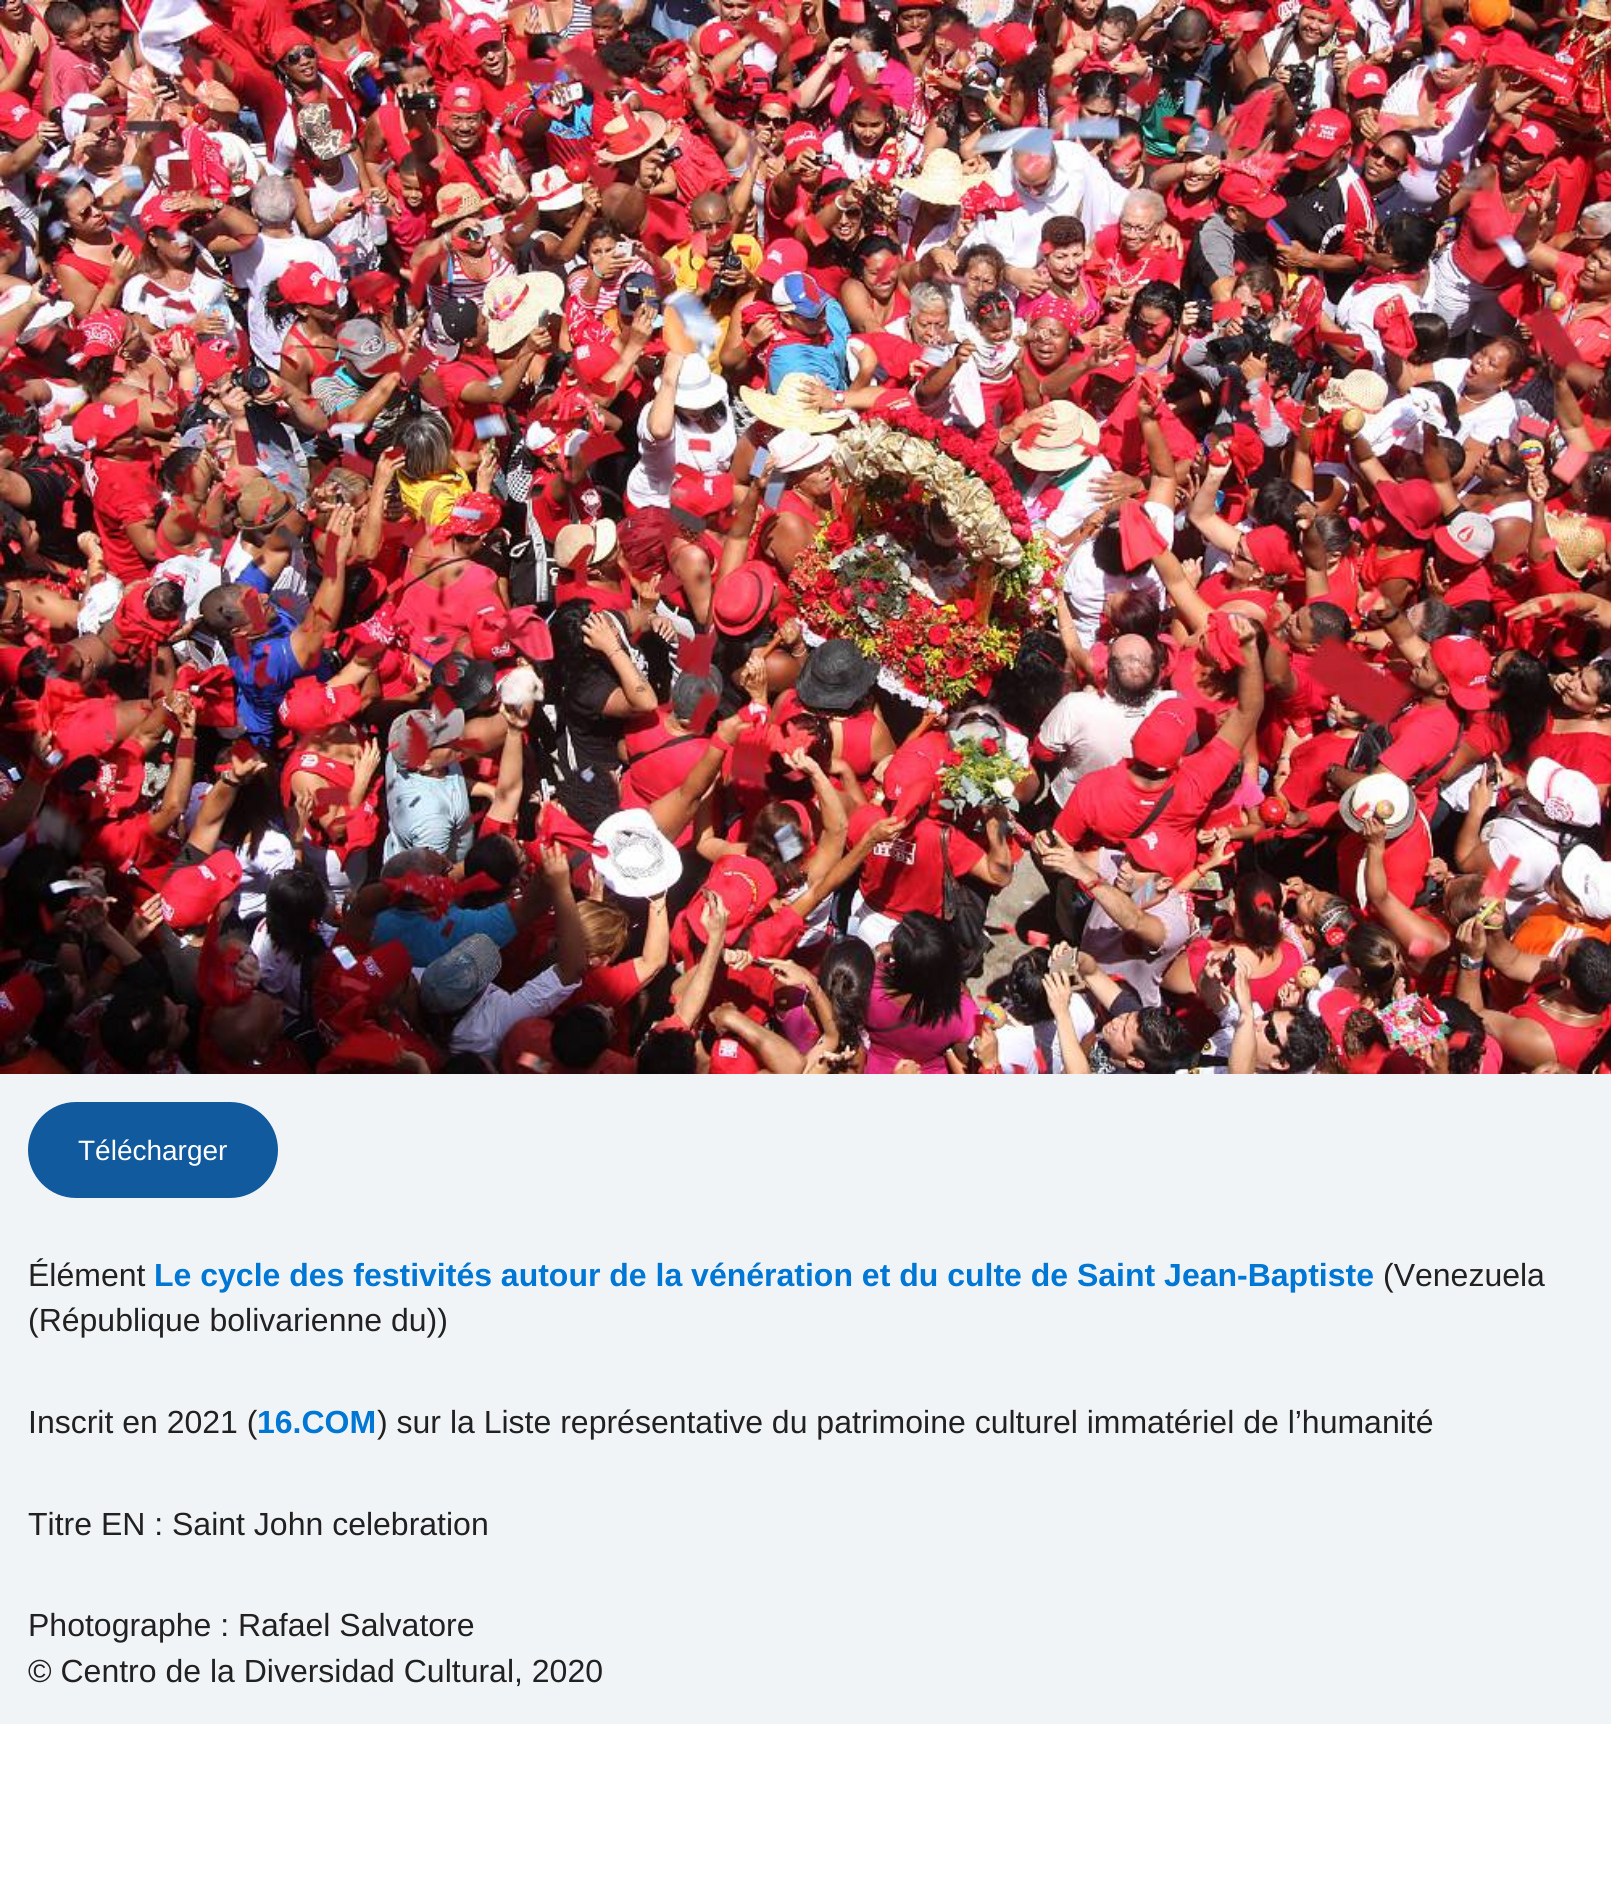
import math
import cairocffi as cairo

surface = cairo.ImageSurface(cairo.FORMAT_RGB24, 1611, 1878)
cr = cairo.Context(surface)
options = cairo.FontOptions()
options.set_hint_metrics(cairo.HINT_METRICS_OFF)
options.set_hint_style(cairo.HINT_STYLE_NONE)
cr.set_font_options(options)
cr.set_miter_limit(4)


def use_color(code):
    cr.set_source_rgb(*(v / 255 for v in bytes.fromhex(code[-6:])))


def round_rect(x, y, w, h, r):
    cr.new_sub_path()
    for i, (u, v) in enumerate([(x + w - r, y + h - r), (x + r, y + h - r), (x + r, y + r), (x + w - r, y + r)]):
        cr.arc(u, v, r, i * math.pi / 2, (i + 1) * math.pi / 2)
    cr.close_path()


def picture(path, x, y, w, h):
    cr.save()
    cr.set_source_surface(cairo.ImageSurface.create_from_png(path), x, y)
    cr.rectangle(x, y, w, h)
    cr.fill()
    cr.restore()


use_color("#ffffff")
cr.paint()
use_color("#f1f4f6")
cr.rectangle(0, 1074, 1611, 650)
cr.fill()
picture("img1.png", 0, 0, 1611, 1074)
use_color("#115a9e")
round_rect(28, 1102, 250, 96, 48)
cr.fill()
cr.select_font_face("Liberation Sans")
cr.set_font_size(28)
use_color("#ffffff")
cr.move_to(78, 1160)
cr.show_text("Télécharger")
cr.set_font_size(32)
use_color("#212121")
cr.move_to(28, 1286)
cr.show_text("Élément")
cr.select_font_face("Liberation Sans", cairo.FONT_SLANT_NORMAL, cairo.FONT_WEIGHT_BOLD)
use_color("#0077d4")
cr.move_to(154, 1286)
cr.show_text("Le cycle des festivités autour de la vénération et du culte de Saint Jean-Baptiste")
cr.select_font_face("Liberation Sans")
use_color("#212121")
cr.move_to(1383, 1286)
cr.show_text("(Venezuela")
cr.move_to(28, 1331)
cr.show_text("(République bolivarienne du))")
cr.move_to(28, 1433)
cr.show_text("Inscrit en 2021 (")
cr.select_font_face("Liberation Sans", cairo.FONT_SLANT_NORMAL, cairo.FONT_WEIGHT_BOLD)
use_color("#0077d4")
cr.move_to(257, 1433)
cr.show_text("16.COM")
cr.select_font_face("Liberation Sans")
use_color("#212121")
cr.move_to(377, 1433)
cr.show_text(") sur la Liste représentative du patrimoine culturel immatériel de l’humanité")
cr.move_to(28, 1535)
cr.show_text("Titre EN : Saint John celebration")
cr.move_to(28, 1636)
cr.show_text("Photographe : Rafael Salvatore")
cr.move_to(28, 1682)
cr.show_text("© Centro de la Diversidad Cultural, 2020")
surface.write_to_png("result.png")
